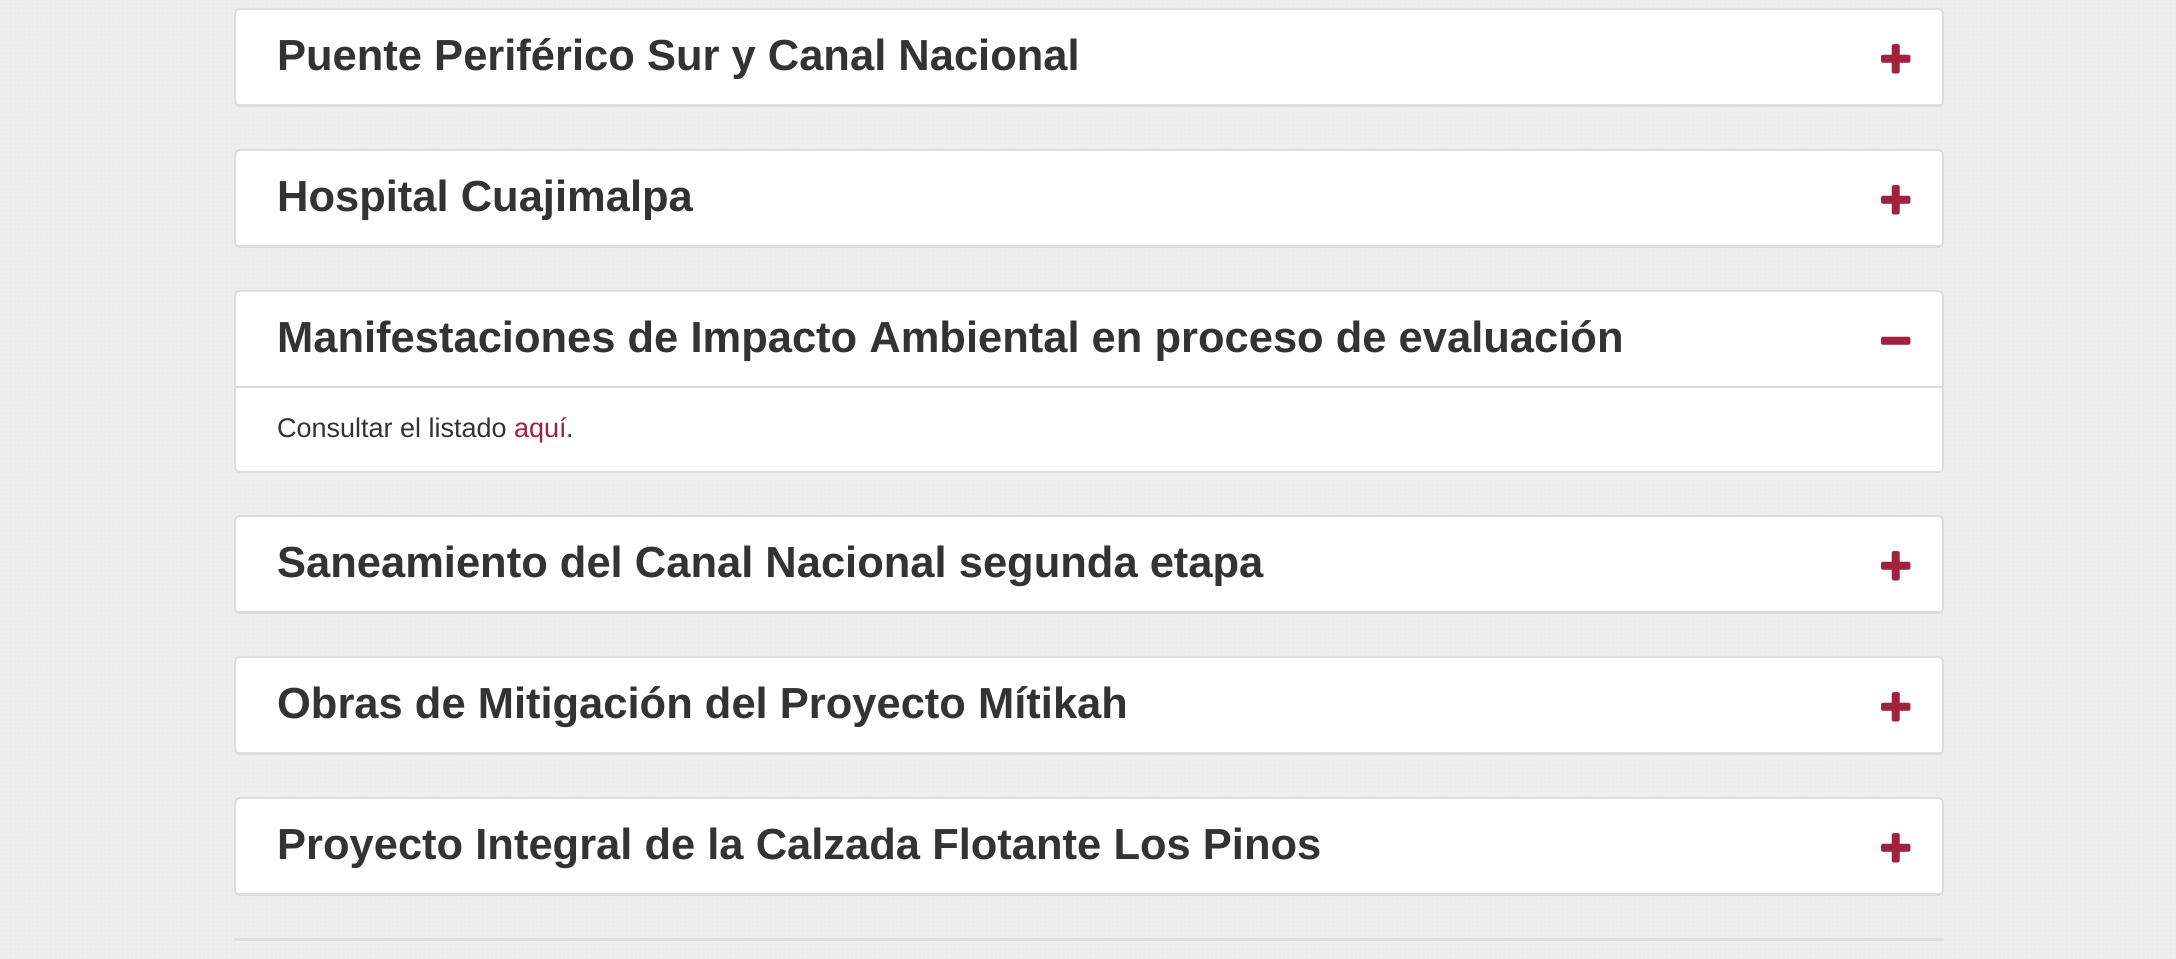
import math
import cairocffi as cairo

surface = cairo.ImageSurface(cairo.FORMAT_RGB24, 2176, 959)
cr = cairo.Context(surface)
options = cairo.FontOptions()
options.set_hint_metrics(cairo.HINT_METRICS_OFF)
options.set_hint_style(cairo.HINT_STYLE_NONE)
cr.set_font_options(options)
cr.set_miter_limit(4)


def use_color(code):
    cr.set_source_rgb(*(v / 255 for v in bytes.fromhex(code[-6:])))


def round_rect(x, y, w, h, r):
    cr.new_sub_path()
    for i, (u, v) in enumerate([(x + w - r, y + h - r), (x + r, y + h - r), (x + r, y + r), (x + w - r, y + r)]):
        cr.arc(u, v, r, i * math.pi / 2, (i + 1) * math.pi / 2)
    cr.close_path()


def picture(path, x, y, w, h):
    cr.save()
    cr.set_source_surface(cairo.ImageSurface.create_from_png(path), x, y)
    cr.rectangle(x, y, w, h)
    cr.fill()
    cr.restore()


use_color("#efefef")
cr.paint()
picture("img1.png", 0, 0, 2176, 959)
use_color("#ffffff")
round_rect(235, 9, 1708, 97, 5)
cr.fill_preserve()
use_color("#dddddd")
cr.stroke()
cr.rectangle(236, 104, 1707, 2)
cr.fill()
cr.select_font_face("Liberation Sans", cairo.FONT_SLANT_NORMAL, cairo.FONT_WEIGHT_BOLD)
cr.set_font_size(43.5)
use_color("#333333")
cr.move_to(277, 70)
cr.show_text("Puente Periférico Sur y Canal Nacional")
picture("img2.png", 1881, 44, 30, 30)
use_color("#ffffff")
round_rect(235, 150, 1708, 97, 5)
cr.fill_preserve()
use_color("#dddddd")
cr.stroke()
cr.rectangle(236, 245, 1707, 2)
cr.fill()
use_color("#333333")
cr.move_to(277, 211)
cr.show_text("Hospital Cuajimalpa")
picture("img2.png", 1881, 185, 30, 30)
use_color("#ffffff")
round_rect(235, 291, 1708, 181, 5)
cr.fill_preserve()
use_color("#dddddd")
cr.stroke()
cr.rectangle(236, 386, 1707, 2)
cr.fill()
use_color("#333333")
cr.move_to(277, 352)
cr.show_text("Manifestaciones de Impacto Ambiental en proceso de evaluación")
picture("img3.png", 1881, 336, 30, 9)
cr.select_font_face("Liberation Sans")
cr.set_font_size(27)
cr.move_to(277, 437)
cr.show_text("Consultar el listado")
use_color("#9f2241")
cr.move_to(514, 437)
cr.show_text("aquí")
use_color("#333333")
cr.move_to(566, 437)
cr.show_text(".")
use_color("#ffffff")
round_rect(235, 516, 1708, 97, 5)
cr.fill_preserve()
use_color("#dddddd")
cr.stroke()
cr.rectangle(236, 611, 1707, 2)
cr.fill()
cr.select_font_face("Liberation Sans", cairo.FONT_SLANT_NORMAL, cairo.FONT_WEIGHT_BOLD)
cr.set_font_size(43.5)
use_color("#333333")
cr.move_to(277, 577)
cr.show_text("Saneamiento del Canal Nacional segunda etapa")
picture("img2.png", 1881, 551, 30, 30)
use_color("#ffffff")
round_rect(235, 657, 1708, 97, 5)
cr.fill_preserve()
use_color("#dddddd")
cr.stroke()
cr.rectangle(236, 752, 1707, 2)
cr.fill()
use_color("#333333")
cr.move_to(277, 718)
cr.show_text("Obras de Mitigación del Proyecto Mítikah")
picture("img2.png", 1881, 692, 30, 30)
use_color("#ffffff")
round_rect(235, 798, 1708, 97, 5)
cr.fill_preserve()
use_color("#dddddd")
cr.stroke()
cr.rectangle(236, 893, 1707, 2)
cr.fill()
use_color("#333333")
cr.move_to(277, 859)
cr.show_text("Proyecto Integral de la Calzada Flotante Los Pinos")
picture("img2.png", 1881, 833, 30, 30)
use_color("#dddddd")
round_rect(234, 938, 1710, 3, 1.5)
cr.fill()
surface.write_to_png("result.png")
